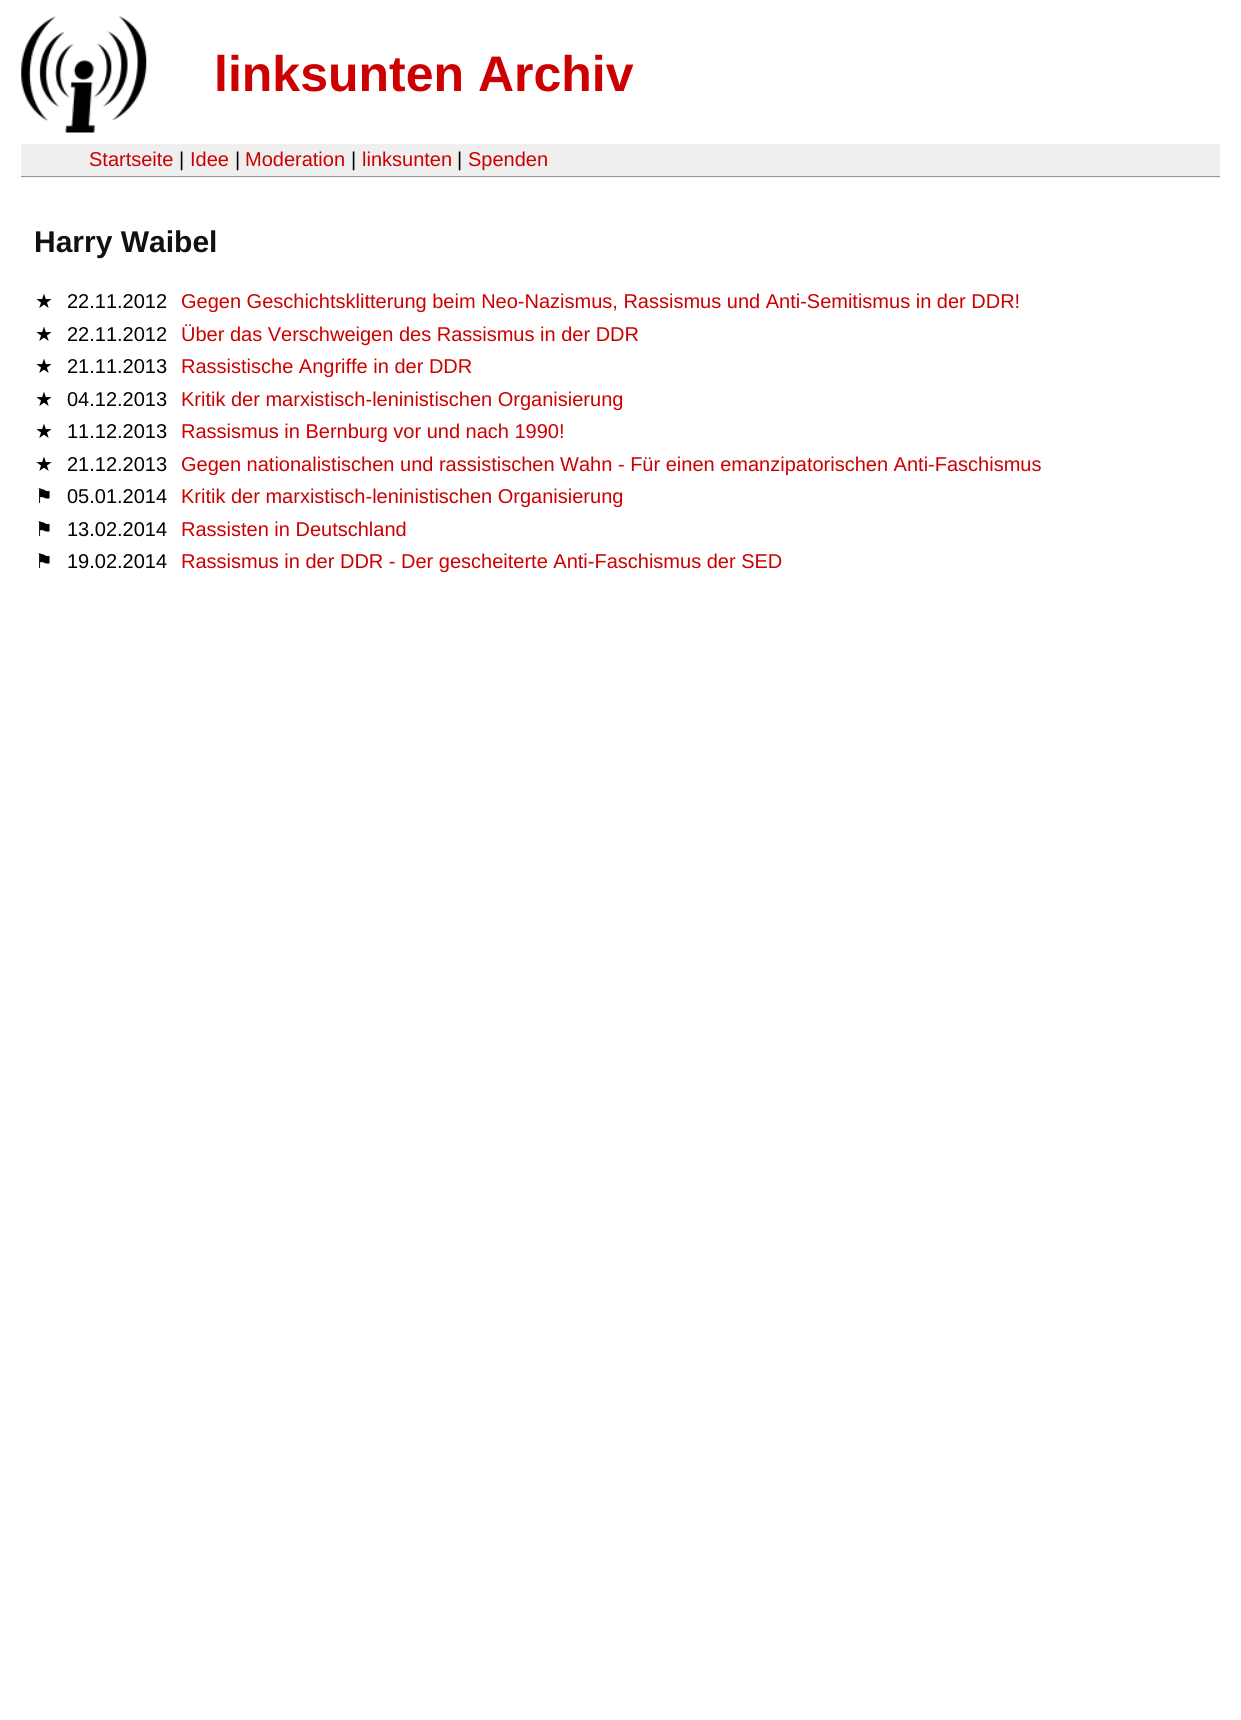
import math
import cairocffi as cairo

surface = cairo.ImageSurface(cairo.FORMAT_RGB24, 1241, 1720)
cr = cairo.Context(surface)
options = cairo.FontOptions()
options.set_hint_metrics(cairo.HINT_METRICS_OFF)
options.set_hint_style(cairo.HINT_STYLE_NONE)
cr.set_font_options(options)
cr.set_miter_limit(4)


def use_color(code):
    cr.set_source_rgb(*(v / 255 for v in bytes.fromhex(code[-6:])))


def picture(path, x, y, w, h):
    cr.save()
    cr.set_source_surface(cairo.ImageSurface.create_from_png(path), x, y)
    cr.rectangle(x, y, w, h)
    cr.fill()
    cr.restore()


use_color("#ffffff")
cr.paint()
picture("img1.png", 21, 16, 126, 117)
cr.select_font_face("Liberation Sans", cairo.FONT_SLANT_NORMAL, cairo.FONT_WEIGHT_BOLD)
cr.set_font_size(50)
use_color("#cc0000")
cr.move_to(214, 91)
cr.show_text("linksunten Archiv")
use_color("#efefef")
cr.rectangle(21, 144, 1199, 34)
cr.fill()
use_color("#999999")
cr.rectangle(21, 176, 1199, 1)
cr.fill()
cr.select_font_face("Liberation Sans")
cr.set_font_size(20)
use_color("#cc0000")
cr.move_to(89, 166)
cr.show_text("Startseite")
use_color("#000000")
cr.move_to(179, 166)
cr.show_text("|")
use_color("#cc0000")
cr.move_to(190, 166)
cr.show_text("Idee")
use_color("#000000")
cr.move_to(235, 166)
cr.show_text("|")
use_color("#cc0000")
cr.move_to(245, 166)
cr.show_text("Moderation")
use_color("#000000")
cr.move_to(351, 166)
cr.show_text("|")
use_color("#cc0000")
cr.move_to(362, 166)
cr.show_text("linksunten")
use_color("#000000")
cr.move_to(457, 166)
cr.show_text("|")
use_color("#cc0000")
cr.move_to(468, 166)
cr.show_text("Spenden")
cr.select_font_face("Liberation Sans", cairo.FONT_SLANT_NORMAL, cairo.FONT_WEIGHT_BOLD)
cr.set_font_size(30)
use_color("#111111")
cr.move_to(34, 252)
cr.show_text("Harry Waibel")
cr.select_font_face("DejaVu Sans")
cr.set_font_size(20)
use_color("#000000")
cr.move_to(35, 308)
cr.show_text("★")
cr.select_font_face("Liberation Sans")
cr.move_to(67, 308)
cr.show_text("22.11.2012")
use_color("#cc0000")
cr.move_to(181, 308)
cr.show_text("Gegen Geschichtsklitterung beim Neo-Nazismus, Rassismus und Anti-Semitismus in der DDR!")
cr.select_font_face("DejaVu Sans")
use_color("#000000")
cr.move_to(35, 341)
cr.show_text("★")
cr.select_font_face("Liberation Sans")
cr.move_to(67, 341)
cr.show_text("22.11.2012")
use_color("#cc0000")
cr.move_to(181, 341)
cr.show_text("Über das Verschweigen des Rassismus in der DDR")
cr.select_font_face("DejaVu Sans")
use_color("#000000")
cr.move_to(35, 373)
cr.show_text("★")
cr.select_font_face("Liberation Sans")
cr.move_to(67, 373)
cr.show_text("21.11.2013")
use_color("#cc0000")
cr.move_to(181, 373)
cr.show_text("Rassistische Angriffe in der DDR")
cr.select_font_face("DejaVu Sans")
use_color("#000000")
cr.move_to(35, 406)
cr.show_text("★")
cr.select_font_face("Liberation Sans")
cr.move_to(67, 406)
cr.show_text("04.12.2013")
use_color("#cc0000")
cr.move_to(181, 406)
cr.show_text("Kritik der marxistisch-leninistischen Organisierung")
cr.select_font_face("DejaVu Sans")
use_color("#000000")
cr.move_to(35, 438)
cr.show_text("★")
cr.select_font_face("Liberation Sans")
cr.move_to(67, 438)
cr.show_text("11.12.2013")
use_color("#cc0000")
cr.move_to(181, 438)
cr.show_text("Rassismus in Bernburg vor und nach 1990!")
cr.select_font_face("DejaVu Sans")
use_color("#000000")
cr.move_to(35, 471)
cr.show_text("★")
cr.select_font_face("Liberation Sans")
cr.move_to(67, 471)
cr.show_text("21.12.2013")
use_color("#cc0000")
cr.move_to(181, 471)
cr.show_text("Gegen nationalistischen und rassistischen Wahn - Für einen emanzipatorischen Anti-Faschismus")
cr.select_font_face("DejaVu Sans")
use_color("#000000")
cr.move_to(35, 503)
cr.show_text("⚑")
cr.select_font_face("Liberation Sans")
cr.move_to(67, 503)
cr.show_text("05.01.2014")
use_color("#cc0000")
cr.move_to(181, 503)
cr.show_text("Kritik der marxistisch-leninistischen Organisierung")
cr.select_font_face("DejaVu Sans")
use_color("#000000")
cr.move_to(35, 536)
cr.show_text("⚑")
cr.select_font_face("Liberation Sans")
cr.move_to(67, 536)
cr.show_text("13.02.2014")
use_color("#cc0000")
cr.move_to(181, 536)
cr.show_text("Rassisten in Deutschland")
cr.select_font_face("DejaVu Sans")
use_color("#000000")
cr.move_to(35, 568)
cr.show_text("⚑")
cr.select_font_face("Liberation Sans")
cr.move_to(67, 568)
cr.show_text("19.02.2014")
use_color("#cc0000")
cr.move_to(181, 568)
cr.show_text("Rassismus in der DDR - Der gescheiterte Anti-Faschismus der SED")
surface.write_to_png("result.png")
